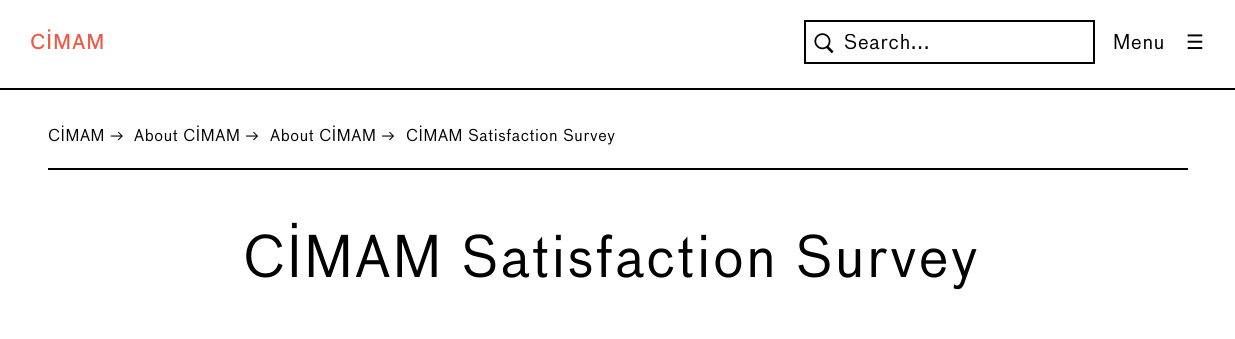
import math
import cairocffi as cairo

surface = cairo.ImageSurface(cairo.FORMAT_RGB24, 1235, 339)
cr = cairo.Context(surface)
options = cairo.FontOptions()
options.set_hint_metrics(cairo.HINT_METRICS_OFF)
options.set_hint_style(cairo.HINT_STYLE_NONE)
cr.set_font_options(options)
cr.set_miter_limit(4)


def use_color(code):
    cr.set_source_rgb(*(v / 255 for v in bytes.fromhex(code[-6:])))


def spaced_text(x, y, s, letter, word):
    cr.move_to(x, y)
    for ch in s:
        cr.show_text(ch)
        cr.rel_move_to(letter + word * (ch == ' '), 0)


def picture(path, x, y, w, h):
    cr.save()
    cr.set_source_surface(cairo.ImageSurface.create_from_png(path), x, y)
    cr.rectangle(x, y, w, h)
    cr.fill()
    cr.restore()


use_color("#ffffff")
cr.paint()
use_color("#000000")
cr.rectangle(0, 88, 1235, 2)
cr.fill()
cr.select_font_face("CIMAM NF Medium")
cr.set_font_size(20)
use_color("#ee5a45")
spaced_text(30, 49, "CIMAM", 0.75, 0)
cr.rectangle(805, 21, 289, 42)
use_color("#000000")
cr.stroke()
picture("img1.png", 814, 33, 20, 21)
cr.save()
cr.rectangle(844, 34, 221, 20)
cr.clip()
cr.select_font_face("CIMAM NF")
spaced_text(844, 49, "Search...", 0.75, 0)
cr.restore()
cr.select_font_face("CIMAM NF")
spaced_text(1113, 49, "Menu", 0.75, 0)
cr.select_font_face("DejaVu Sans")
spaced_text(1186, 49, "☰", 0.75, 0)
cr.select_font_face("CIMAM NF")
cr.set_font_size(16)
spaced_text(48, 141, "CIMAM →", 0.6, 0)
spaced_text(134, 141, "About CIMAM →", 0.6, 0)
spaced_text(270, 141, "About CIMAM →", 0.6, 0)
spaced_text(406, 141, "CIMAM Satisfaction Survey", 0.6, 0)
cr.rectangle(48, 168, 1140, 2)
cr.fill()
cr.set_font_size(56)
spaced_text(243, 277, "CIMAM Satisfaction Survey", 2.25, 0)
surface.write_to_png("result.png")
